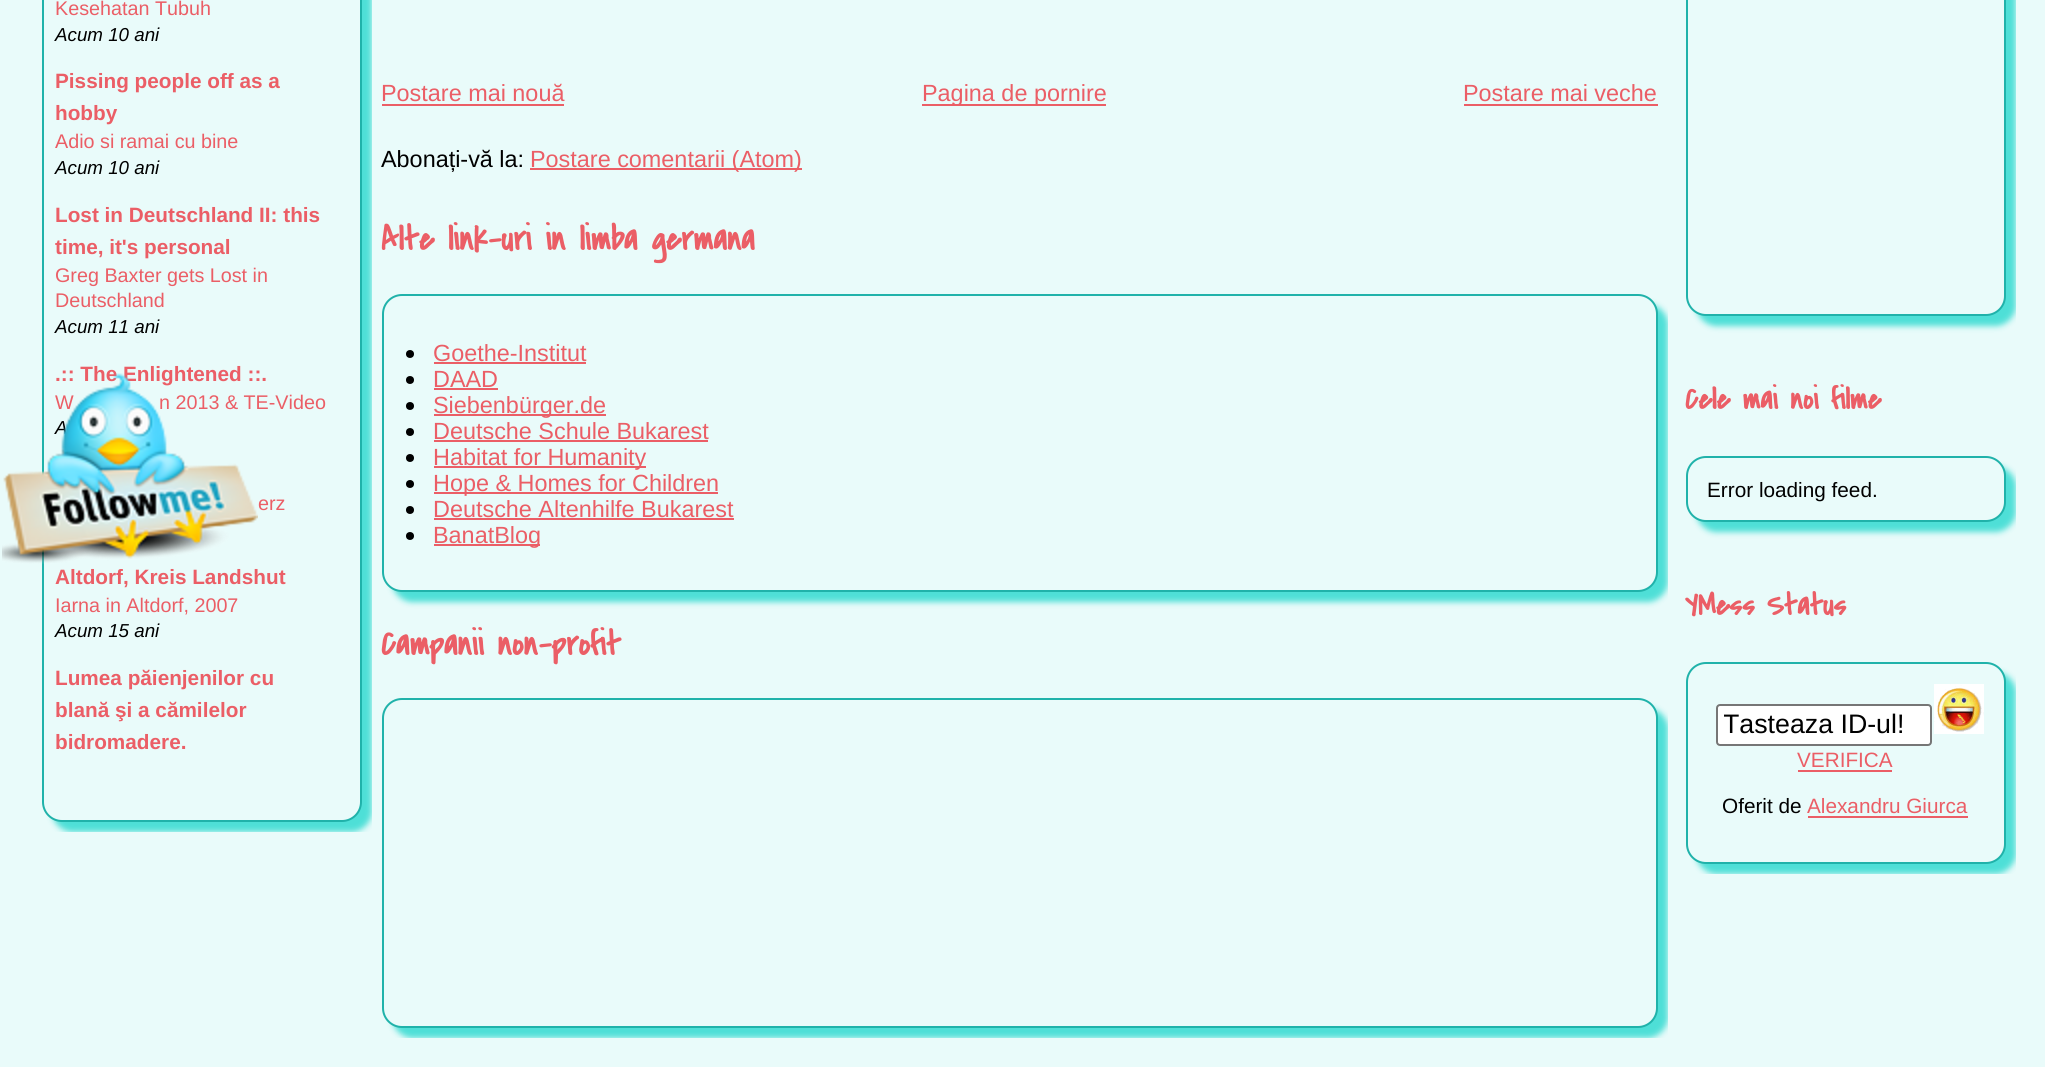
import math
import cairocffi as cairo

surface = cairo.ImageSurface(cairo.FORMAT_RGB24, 2045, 1067)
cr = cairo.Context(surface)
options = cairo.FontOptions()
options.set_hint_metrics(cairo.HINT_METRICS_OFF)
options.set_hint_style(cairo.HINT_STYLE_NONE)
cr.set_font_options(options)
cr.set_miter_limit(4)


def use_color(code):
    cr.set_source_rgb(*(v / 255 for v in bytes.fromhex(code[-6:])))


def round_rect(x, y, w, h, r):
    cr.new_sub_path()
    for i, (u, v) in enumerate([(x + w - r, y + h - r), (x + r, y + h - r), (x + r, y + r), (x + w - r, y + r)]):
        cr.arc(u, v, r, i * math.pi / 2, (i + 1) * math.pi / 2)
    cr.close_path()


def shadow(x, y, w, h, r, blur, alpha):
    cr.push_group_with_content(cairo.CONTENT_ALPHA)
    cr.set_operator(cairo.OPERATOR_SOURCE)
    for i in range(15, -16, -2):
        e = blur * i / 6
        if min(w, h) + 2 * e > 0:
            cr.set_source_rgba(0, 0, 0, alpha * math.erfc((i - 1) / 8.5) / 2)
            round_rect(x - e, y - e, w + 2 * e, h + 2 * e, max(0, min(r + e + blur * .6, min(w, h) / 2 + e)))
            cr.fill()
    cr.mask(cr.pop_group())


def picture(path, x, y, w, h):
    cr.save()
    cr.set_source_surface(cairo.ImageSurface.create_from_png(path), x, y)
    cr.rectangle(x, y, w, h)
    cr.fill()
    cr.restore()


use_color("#e9fbfa")
cr.paint()
cr.save()
cr.rectangle(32, 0, 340, 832)
cr.clip()
use_color("#4edfd7")
shadow(52, -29, 320, 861, 20, 3, 1)
cr.restore()
use_color("#e9fbfa")
round_rect(43, -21, 318, 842, 19)
cr.fill_preserve()
use_color("#20b2aa")
cr.stroke()
cr.select_font_face("Liberation Sans")
cr.set_font_size(19.75)
use_color("#eb5e66")
cr.move_to(55, 15)
cr.show_text("Kesehatan Tubuh")
cr.select_font_face("Liberation Sans", cairo.FONT_SLANT_ITALIC)
cr.set_font_size(18.75)
use_color("#000000")
cr.move_to(55, 41)
cr.show_text("Acum 10 ani")
cr.select_font_face("Liberation Sans", cairo.FONT_SLANT_NORMAL, cairo.FONT_WEIGHT_BOLD)
cr.set_font_size(20.75)
use_color("#eb5e66")
cr.move_to(55, 88)
cr.show_text("Pissing people off as a")
cr.move_to(55, 120)
cr.show_text("hobby")
cr.select_font_face("Liberation Sans")
cr.set_font_size(19.75)
cr.move_to(55, 148)
cr.show_text("Adio si ramai cu bine")
cr.select_font_face("Liberation Sans", cairo.FONT_SLANT_ITALIC)
cr.set_font_size(18.75)
use_color("#000000")
cr.move_to(55, 174)
cr.show_text("Acum 10 ani")
cr.select_font_face("Liberation Sans", cairo.FONT_SLANT_NORMAL, cairo.FONT_WEIGHT_BOLD)
cr.set_font_size(20.75)
use_color("#eb5e66")
cr.move_to(55, 222)
cr.show_text("Lost in Deutschland II: this")
cr.move_to(55, 254)
cr.show_text("time, it's personal")
cr.select_font_face("Liberation Sans")
cr.set_font_size(19.75)
cr.move_to(55, 282)
cr.show_text("Greg Baxter gets Lost in")
cr.move_to(55, 307)
cr.show_text("Deutschland")
cr.select_font_face("Liberation Sans", cairo.FONT_SLANT_ITALIC)
cr.set_font_size(18.75)
use_color("#000000")
cr.move_to(55, 333)
cr.show_text("Acum 11 ani")
cr.select_font_face("Liberation Sans", cairo.FONT_SLANT_NORMAL, cairo.FONT_WEIGHT_BOLD)
cr.set_font_size(20.75)
use_color("#eb5e66")
cr.move_to(55, 381)
cr.show_text(".:: The Enlightened ::.")
cr.select_font_face("Liberation Sans")
cr.set_font_size(19.75)
cr.move_to(55, 409)
cr.show_text("W")
cr.move_to(159, 409)
cr.show_text("n 2013 & TE-Video")
cr.select_font_face("Liberation Sans", cairo.FONT_SLANT_ITALIC)
cr.set_font_size(18.75)
use_color("#000000")
cr.move_to(55, 434)
cr.show_text("A")
cr.select_font_face("Liberation Sans")
cr.set_font_size(19.75)
use_color("#eb5e66")
cr.move_to(258, 510)
cr.show_text("erz")
cr.select_font_face("Liberation Sans", cairo.FONT_SLANT_NORMAL, cairo.FONT_WEIGHT_BOLD)
cr.set_font_size(20.75)
cr.move_to(55, 584)
cr.show_text("Altdorf, Kreis Landshut")
cr.select_font_face("Liberation Sans")
cr.set_font_size(19.75)
cr.move_to(55, 612)
cr.show_text("Iarna in Altdorf, 2007")
cr.select_font_face("Liberation Sans", cairo.FONT_SLANT_ITALIC)
cr.set_font_size(18.75)
use_color("#000000")
cr.move_to(55, 637)
cr.show_text("Acum 15 ani")
cr.select_font_face("Liberation Sans", cairo.FONT_SLANT_NORMAL, cairo.FONT_WEIGHT_BOLD)
cr.set_font_size(20.75)
use_color("#eb5e66")
cr.move_to(55, 685)
cr.show_text("Lumea păienjenilor cu")
cr.move_to(55, 717)
cr.show_text("blană şi a cămilelor")
cr.move_to(55, 749)
cr.show_text("bidromadere.")
cr.select_font_face("Liberation Sans")
cr.set_font_size(23.4)
cr.move_to(381, 101)
cr.show_text("Postare mai nouă")
cr.rectangle(382, 104, 182, 2)
cr.fill()
cr.rectangle(922, 104, 184, 2)
cr.fill()
cr.move_to(922, 101)
cr.show_text("Pagina de pornire")
cr.move_to(1463, 101)
cr.show_text("Postare mai veche")
cr.rectangle(1464, 104, 194, 2)
cr.fill()
use_color("#000000")
cr.move_to(381, 167)
cr.show_text("Abonați-vă la:")
use_color("#eb5e66")
cr.rectangle(530, 168, 272, 2)
cr.fill()
cr.move_to(530, 167)
cr.show_text("Postare comentarii (Atom)")
cr.select_font_face("Covered By Your Grace", cairo.FONT_SLANT_NORMAL, cairo.FONT_WEIGHT_BOLD)
cr.set_font_size(35.1)
cr.move_to(381, 250)
cr.show_text("Alte link-uri in limba germana")
cr.save()
cr.rectangle(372, 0, 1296, 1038)
cr.clip()
use_color("#4edfd7")
shadow(392, 304, 1276, 298, 20, 3, 1)
cr.restore()
use_color("#e9fbfa")
round_rect(383, 295, 1274, 296, 19)
cr.fill_preserve()
use_color("#20b2aa")
cr.stroke()
use_color("#000000")
cr.arc(410, 354, 4, 0, 2 * math.pi)
cr.fill()
cr.select_font_face("Liberation Sans")
cr.set_font_size(23.4)
use_color("#eb5e66")
cr.move_to(433, 361)
cr.show_text("Goethe-Institut")
cr.rectangle(434, 362, 152, 2)
cr.fill()
use_color("#000000")
cr.arc(410, 380, 4, 0, 2 * math.pi)
cr.fill()
use_color("#eb5e66")
cr.move_to(433, 387)
cr.show_text("DAAD")
cr.rectangle(434, 388, 64, 2)
cr.fill()
use_color("#000000")
cr.arc(410, 406, 4, 0, 2 * math.pi)
cr.fill()
use_color("#eb5e66")
cr.rectangle(434, 414, 172, 2)
cr.fill()
cr.move_to(433, 413)
cr.show_text("Siebenbürger.de")
use_color("#000000")
cr.new_path()
cr.arc(410, 432, 4, 0, 2 * math.pi)
cr.fill()
use_color("#eb5e66")
cr.move_to(433, 439)
cr.show_text("Deutsche Schule Bukarest")
cr.rectangle(434, 440, 274, 2)
cr.fill()
use_color("#000000")
cr.arc(410, 458, 4, 0, 2 * math.pi)
cr.fill()
use_color("#eb5e66")
cr.rectangle(434, 466, 212, 2)
cr.fill()
cr.move_to(433, 465)
cr.show_text("Habitat for Humanity")
use_color("#000000")
cr.new_path()
cr.arc(410, 484, 4, 0, 2 * math.pi)
cr.fill()
use_color("#eb5e66")
cr.rectangle(434, 492, 284, 2)
cr.fill()
cr.move_to(433, 491)
cr.show_text("Hope & Homes for Children")
use_color("#000000")
cr.new_path()
cr.arc(410, 510, 4, 0, 2 * math.pi)
cr.fill()
use_color("#eb5e66")
cr.move_to(433, 517)
cr.show_text("Deutsche Altenhilfe Bukarest")
cr.rectangle(434, 518, 300, 2)
cr.fill()
use_color("#000000")
cr.arc(410, 536, 4, 0, 2 * math.pi)
cr.fill()
use_color("#eb5e66")
cr.rectangle(434, 544, 106, 2)
cr.fill()
cr.move_to(433, 543)
cr.show_text("BanatBlog")
cr.select_font_face("Covered By Your Grace", cairo.FONT_SLANT_NORMAL, cairo.FONT_WEIGHT_BOLD)
cr.set_font_size(35.1)
cr.move_to(381, 655)
cr.show_text("Campanii non-profit")
cr.save()
cr.rectangle(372, 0, 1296, 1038)
cr.clip()
use_color("#4edfd7")
shadow(392, 708, 1276, 330, 20, 3, 1)
cr.restore()
use_color("#e9fbfa")
round_rect(383, 699, 1274, 328, 19)
cr.fill_preserve()
use_color("#20b2aa")
cr.stroke()
cr.save()
cr.rectangle(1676, 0, 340, 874)
cr.clip()
use_color("#4edfd7")
shadow(1696, -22, 320, 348, 20, 3, 1)
cr.restore()
use_color("#e9fbfa")
round_rect(1687, -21, 318, 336, 19)
cr.fill_preserve()
use_color("#20b2aa")
cr.stroke()
picture("img1.png", 2, 373, 256, 191)
cr.set_font_size(31.25)
use_color("#eb5e66")
cr.move_to(1685, 409)
cr.show_text("Cele mai noi filme")
cr.save()
cr.rectangle(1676, 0, 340, 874)
cr.clip()
use_color("#4edfd7")
shadow(1696, 466, 320, 66, 20, 3, 1)
cr.restore()
use_color("#e9fbfa")
round_rect(1687, 457, 318, 64, 19)
cr.fill_preserve()
use_color("#20b2aa")
cr.stroke()
cr.select_font_face("Liberation Sans")
cr.set_font_size(20.75)
use_color("#000000")
cr.move_to(1707, 497)
cr.show_text("Error loading feed.")
cr.select_font_face("Covered By Your Grace", cairo.FONT_SLANT_NORMAL, cairo.FONT_WEIGHT_BOLD)
cr.set_font_size(31.25)
use_color("#eb5e66")
cr.move_to(1685, 615)
cr.show_text("YMess Status")
cr.save()
cr.rectangle(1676, 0, 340, 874)
cr.clip()
use_color("#4edfd7")
shadow(1696, 672, 320, 202, 20, 3, 1)
cr.restore()
use_color("#e9fbfa")
round_rect(1687, 663, 318, 200, 19)
cr.fill_preserve()
use_color("#20b2aa")
cr.stroke()
picture("img2.png", 1934, 684, 50, 50)
use_color("#ffffff")
round_rect(1717, 705, 214, 40, 3)
cr.fill_preserve()
use_color("#767676")
cr.stroke()
cr.save()
cr.rectangle(1724, 710, 200, 30)
cr.clip()
cr.select_font_face("Liberation Sans")
cr.set_font_size(26.75)
use_color("#000000")
cr.move_to(1723, 733)
cr.show_text("Tasteaza ID-ul!")
cr.restore()
cr.select_font_face("Liberation Sans")
cr.set_font_size(20.75)
use_color("#eb5e66")
cr.move_to(1797, 767)
cr.show_text("VERIFICA")
cr.rectangle(1798, 770, 94, 2)
cr.fill()
use_color("#000000")
cr.move_to(1722, 813)
cr.show_text("Oferit de")
use_color("#eb5e66")
cr.move_to(1807, 813)
cr.show_text("Alexandru Giurca")
cr.rectangle(1808, 816, 160, 2)
cr.fill()
surface.write_to_png("result.png")
